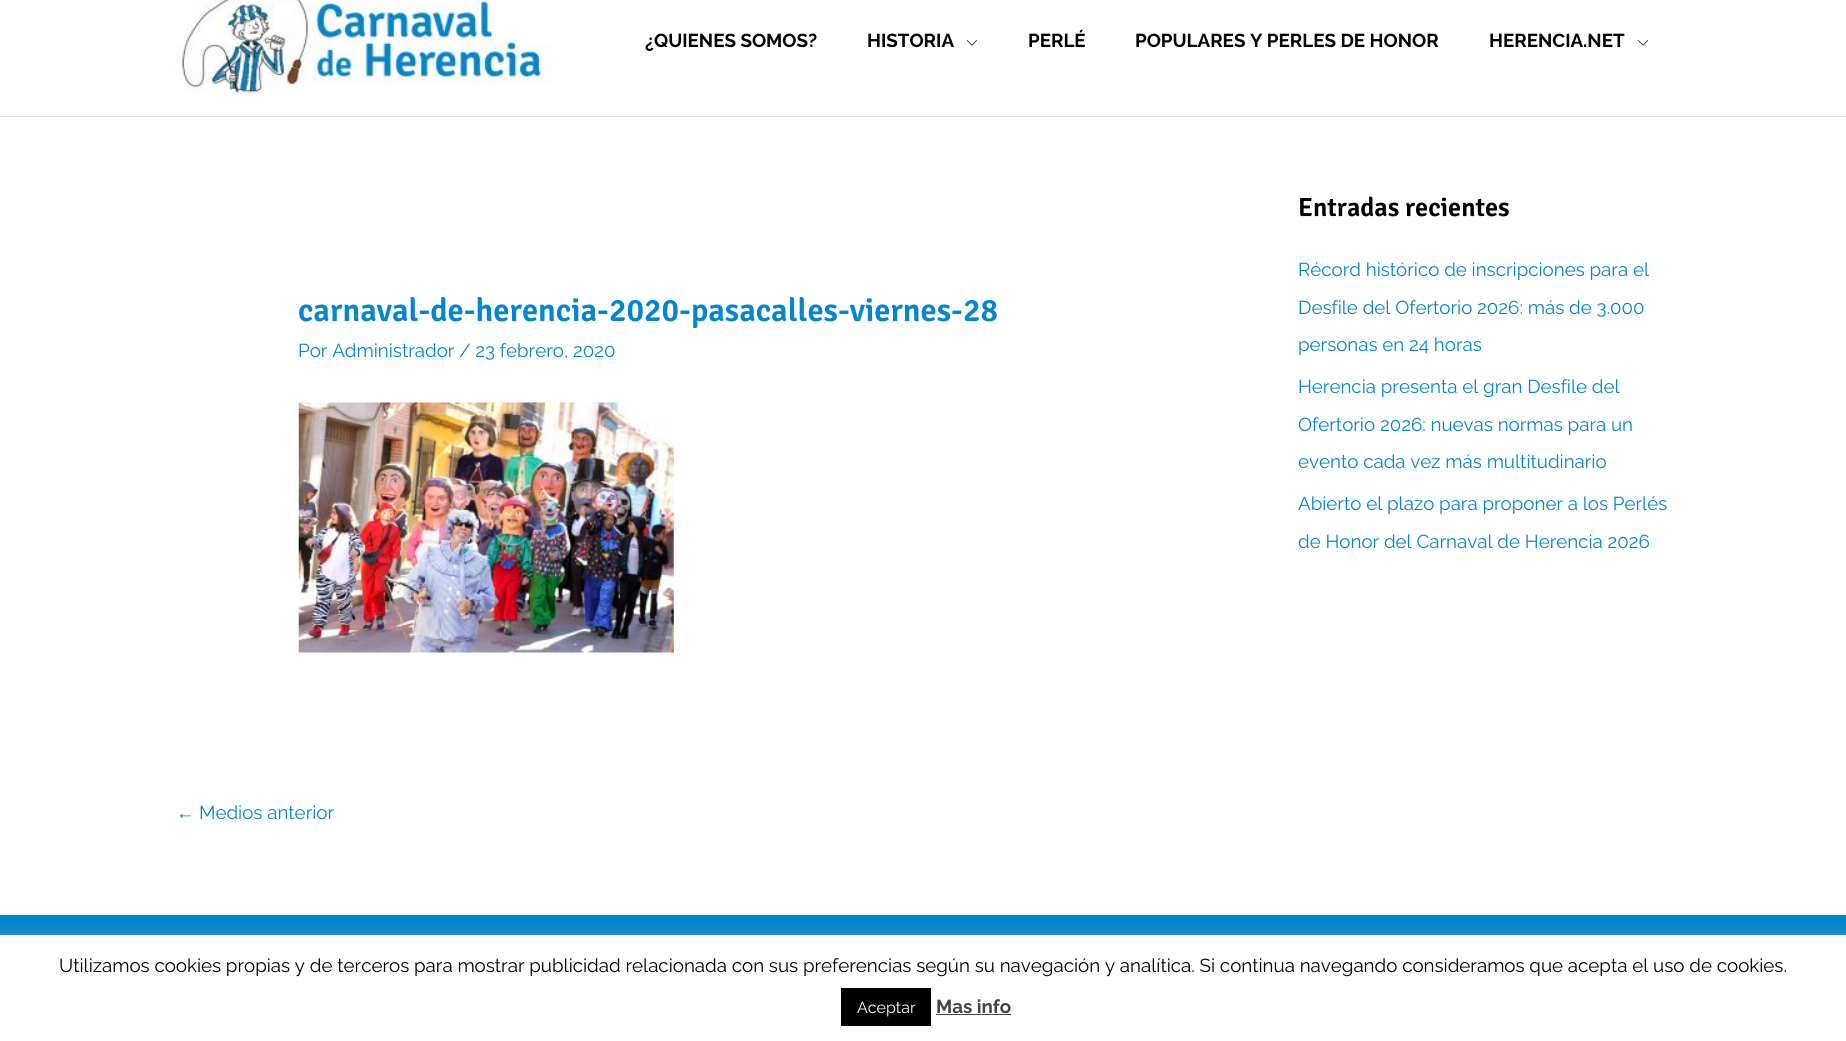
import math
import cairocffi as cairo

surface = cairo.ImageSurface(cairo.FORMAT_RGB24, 1846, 1041)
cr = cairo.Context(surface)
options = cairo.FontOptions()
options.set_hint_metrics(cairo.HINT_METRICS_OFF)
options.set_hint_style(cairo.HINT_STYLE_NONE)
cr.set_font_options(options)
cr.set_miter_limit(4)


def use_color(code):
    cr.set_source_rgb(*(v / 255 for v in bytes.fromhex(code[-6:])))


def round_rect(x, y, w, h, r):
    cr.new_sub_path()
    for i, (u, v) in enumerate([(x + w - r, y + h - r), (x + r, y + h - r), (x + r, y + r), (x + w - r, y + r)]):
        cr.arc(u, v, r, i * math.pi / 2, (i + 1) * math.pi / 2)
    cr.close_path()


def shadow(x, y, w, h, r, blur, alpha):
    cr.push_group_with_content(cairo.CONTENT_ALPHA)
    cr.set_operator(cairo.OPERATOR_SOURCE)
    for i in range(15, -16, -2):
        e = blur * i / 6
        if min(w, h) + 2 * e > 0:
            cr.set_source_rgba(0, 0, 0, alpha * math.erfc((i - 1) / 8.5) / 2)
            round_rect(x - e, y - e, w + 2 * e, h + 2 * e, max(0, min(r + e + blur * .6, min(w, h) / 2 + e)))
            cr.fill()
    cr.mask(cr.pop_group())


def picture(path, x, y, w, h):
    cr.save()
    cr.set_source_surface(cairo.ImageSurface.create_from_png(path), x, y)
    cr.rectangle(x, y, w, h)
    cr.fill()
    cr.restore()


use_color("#ffffff")
cr.paint()
use_color("#dddddd")
cr.rectangle(0, 116, 1846, 1)
cr.fill()
picture("img1.png", 175, 0, 379, 98)
cr.select_font_face("Raleway", cairo.FONT_SLANT_NORMAL, cairo.FONT_WEIGHT_BOLD)
cr.set_font_size(18.75)
use_color("#000000")
cr.move_to(645, 47)
cr.show_text("¿QUIENES SOMOS?")
cr.move_to(867, 47)
cr.show_text("HISTORIA")
picture("img2.png", 966, 40, 11, 6)
cr.move_to(1028, 47)
cr.show_text("PERLÉ")
cr.move_to(1135, 47)
cr.show_text("POPULARES Y PERLES DE HONOR")
cr.move_to(1489, 47)
cr.show_text("HERENCIA.NET")
picture("img3.png", 1638, 40, 11, 6)
cr.select_font_face("Signika SemiBold")
cr.set_font_size(32.5)
use_color("#0585cb")
cr.move_to(298, 321)
cr.show_text("carnaval-de-herencia-2020-pasacalles-viernes-28")
cr.select_font_face("Raleway")
cr.set_font_size(18.75)
cr.move_to(298, 357)
cr.show_text("Por Administrador / 23 febrero, 2020")
picture("img4.png", 298, 402, 376, 251)
cr.select_font_face("Liberation Sans")
cr.move_to(176, 819)
cr.show_text("←")
cr.select_font_face("Raleway")
cr.move_to(199, 819)
cr.show_text("Medios anterior")
cr.select_font_face("Signika SemiBold")
cr.set_font_size(26.25)
use_color("#000000")
cr.move_to(1298, 216)
cr.show_text("Entradas recientes")
cr.select_font_face("Raleway")
cr.set_font_size(18.75)
use_color("#0585cb")
cr.move_to(1298, 276)
cr.show_text("Récord histórico de inscripciones para el")
cr.move_to(1298, 314)
cr.show_text("Desfile del Ofertorio 2026: más de 3.000")
cr.move_to(1298, 351)
cr.show_text("personas en 24 horas")
cr.move_to(1298, 393)
cr.show_text("Herencia presenta el gran Desfile del")
cr.move_to(1298, 431)
cr.show_text("Ofertorio 2026: nuevas normas para un")
cr.move_to(1298, 468)
cr.show_text("evento cada vez más multitudinario")
cr.move_to(1298, 510)
cr.show_text("Abierto el plazo para proponer a los Perlés")
cr.move_to(1298, 548)
cr.show_text("de Honor del Carnaval de Herencia 2026")
cr.rectangle(0, 915, 1846, 20)
cr.fill()
use_color("#acabab")
shadow(0, 934, 1846, 106, 0, 6, 0.3)
use_color("#ffffff")
cr.rectangle(0, 935, 1846, 106)
cr.fill()
use_color("#000000")
cr.move_to(59, 972)
cr.show_text("Utilizamos cookies propias y de terceros para mostrar publicidad relacionada con sus preferencias según su navegación y analítica. Si continua navegando consideramos que acepta el uso de cookies.")
cr.rectangle(841, 988, 90, 38)
cr.fill()
cr.set_font_size(16)
use_color("#ffffff")
cr.move_to(857, 1013)
cr.show_text("Aceptar")
cr.select_font_face("Raleway", cairo.FONT_SLANT_NORMAL, cairo.FONT_WEIGHT_BOLD)
cr.set_font_size(18.75)
use_color("#444444")
cr.move_to(936, 1013)
cr.show_text("Mas info")
cr.rectangle(936, 1014, 75, 1)
cr.fill()
surface.write_to_png("result.png")
